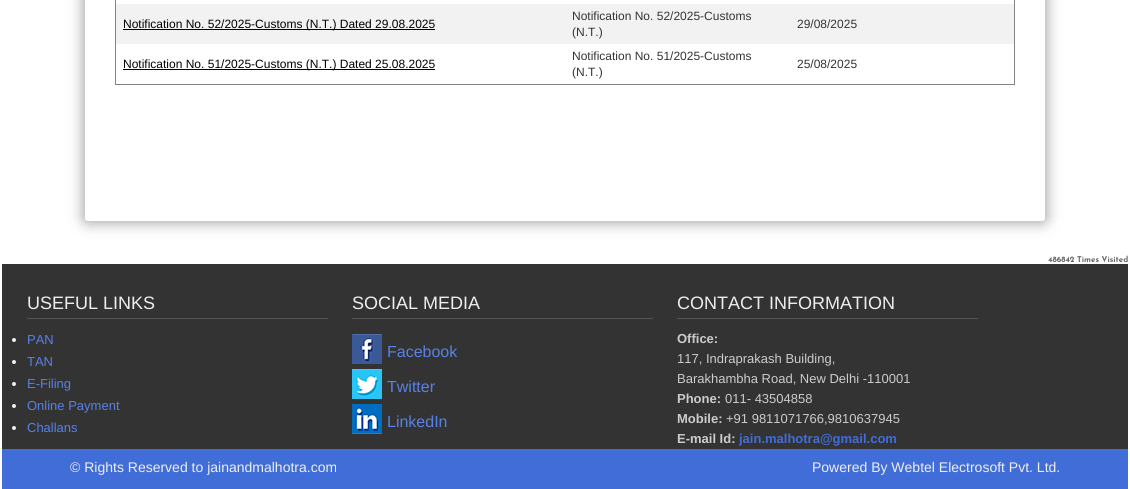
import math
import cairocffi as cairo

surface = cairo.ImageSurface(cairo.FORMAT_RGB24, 1130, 489)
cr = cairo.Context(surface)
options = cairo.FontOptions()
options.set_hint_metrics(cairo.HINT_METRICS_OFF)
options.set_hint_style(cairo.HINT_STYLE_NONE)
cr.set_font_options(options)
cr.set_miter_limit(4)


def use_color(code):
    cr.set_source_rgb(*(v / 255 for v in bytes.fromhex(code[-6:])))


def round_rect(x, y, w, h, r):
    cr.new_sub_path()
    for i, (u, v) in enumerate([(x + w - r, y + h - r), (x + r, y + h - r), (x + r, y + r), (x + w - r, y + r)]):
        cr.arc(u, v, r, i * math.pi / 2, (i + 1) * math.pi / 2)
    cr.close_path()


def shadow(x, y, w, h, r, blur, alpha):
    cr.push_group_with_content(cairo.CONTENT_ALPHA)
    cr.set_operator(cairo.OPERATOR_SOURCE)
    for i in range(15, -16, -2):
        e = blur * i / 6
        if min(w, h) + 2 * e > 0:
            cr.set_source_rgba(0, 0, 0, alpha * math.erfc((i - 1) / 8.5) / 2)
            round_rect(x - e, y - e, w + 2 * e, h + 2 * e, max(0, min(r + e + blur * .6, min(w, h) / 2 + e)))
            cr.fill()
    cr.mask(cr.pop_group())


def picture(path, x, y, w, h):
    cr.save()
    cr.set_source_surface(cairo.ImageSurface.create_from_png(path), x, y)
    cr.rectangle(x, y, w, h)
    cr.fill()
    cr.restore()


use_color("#ffffff")
cr.paint()
use_color("#000000")
shadow(84, -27, 962, 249, 4, 7.5, 0.4)
use_color("#ffffff")
round_rect(85, -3, 960, 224, 3)
cr.fill()
cr.rectangle(115.5, -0.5, 899, 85)
use_color("#828282")
cr.set_line_width(1)
cr.stroke()
use_color("#f2f2f2")
cr.rectangle(116, 4, 898, 40)
cr.fill()
use_color("#000000")
cr.rectangle(123, 29, 312, 1)
cr.fill()
cr.select_font_face("Liberation Sans")
cr.set_font_size(12)
cr.move_to(123, 28)
cr.show_text("Notification No. 52/2025-Customs (N.T.) Dated 29.08.2025")
use_color("#333333")
cr.move_to(572, 20)
cr.show_text("Notification No. 52/2025-Customs")
cr.move_to(572, 36)
cr.show_text("(N.T.)")
cr.move_to(797, 28)
cr.show_text("29/08/2025")
use_color("#000000")
cr.rectangle(123, 69, 312, 1)
cr.fill()
cr.move_to(123, 68)
cr.show_text("Notification No. 51/2025-Customs (N.T.) Dated 25.08.2025")
use_color("#333333")
cr.move_to(572, 60)
cr.show_text("Notification No. 51/2025-Customs")
cr.move_to(572, 76)
cr.show_text("(N.T.)")
cr.move_to(797, 68)
cr.show_text("25/08/2025")
cr.select_font_face("Josefin Sans", cairo.FONT_SLANT_NORMAL, cairo.FONT_WEIGHT_BOLD)
cr.set_font_size(8)
use_color("#696969")
cr.move_to(1048, 262)
cr.show_text("486842 Times Visited")
use_color("#333333")
cr.rectangle(2, 264, 1126, 185)
cr.fill()
use_color("#555555")
cr.rectangle(27, 318, 301, 1)
cr.fill()
cr.select_font_face("Liberation Sans")
cr.set_font_size(18)
use_color("#eeeeee")
cr.move_to(27, 309)
cr.show_text("USEFUL LINKS")
use_color("#555555")
cr.rectangle(352, 318, 301, 1)
cr.fill()
use_color("#eeeeee")
cr.move_to(352, 309)
cr.show_text("SOCIAL MEDIA")
use_color("#555555")
cr.rectangle(677, 318, 301, 1)
cr.fill()
use_color("#eeeeee")
cr.move_to(677, 309)
cr.show_text("CONTACT INFORMATION")
cr.new_path()
cr.arc(14, 340, 2, 0, 2 * math.pi)
cr.fill()
cr.set_font_size(13)
use_color("#5781e7")
cr.move_to(27, 344)
cr.show_text("PAN")
use_color("#eeeeee")
cr.new_path()
cr.arc(14, 362, 2, 0, 2 * math.pi)
cr.fill()
use_color("#5781e7")
cr.move_to(27, 366)
cr.show_text("TAN")
use_color("#eeeeee")
cr.new_path()
cr.arc(14, 384, 2, 0, 2 * math.pi)
cr.fill()
use_color("#5781e7")
cr.move_to(27, 388)
cr.show_text("E-Filing")
use_color("#eeeeee")
cr.new_path()
cr.arc(14, 406, 2, 0, 2 * math.pi)
cr.fill()
use_color("#5781e7")
cr.move_to(27, 410)
cr.show_text("Online Payment")
use_color("#eeeeee")
cr.new_path()
cr.arc(14, 428, 2, 0, 2 * math.pi)
cr.fill()
use_color("#5781e7")
cr.move_to(27, 432)
cr.show_text("Challans")
picture("img1.png", 352, 334, 30, 30)
cr.set_font_size(16)
cr.move_to(387, 357)
cr.show_text("Facebook")
picture("img2.png", 352, 369, 30, 30)
cr.move_to(387, 392)
cr.show_text("Twitter")
picture("img3.png", 352, 404, 30, 30)
cr.move_to(387, 427)
cr.show_text("LinkedIn")
cr.select_font_face("Liberation Sans", cairo.FONT_SLANT_NORMAL, cairo.FONT_WEIGHT_BOLD)
cr.set_font_size(13)
use_color("#cccccc")
cr.move_to(677, 343)
cr.show_text("Office:")
cr.select_font_face("Liberation Sans")
cr.move_to(677, 363)
cr.show_text("117, Indraprakash Building,")
cr.move_to(677, 383)
cr.show_text("Barakhambha Road, New Delhi -110001")
cr.select_font_face("Liberation Sans", cairo.FONT_SLANT_NORMAL, cairo.FONT_WEIGHT_BOLD)
cr.move_to(677, 403)
cr.show_text("Phone:")
cr.select_font_face("Liberation Sans")
cr.move_to(725, 403)
cr.show_text("011- 43504858")
cr.select_font_face("Liberation Sans", cairo.FONT_SLANT_NORMAL, cairo.FONT_WEIGHT_BOLD)
cr.move_to(677, 423)
cr.show_text("Mobile:")
cr.select_font_face("Liberation Sans")
cr.move_to(726, 423)
cr.show_text("+91 9811071766,9810637945")
cr.select_font_face("Liberation Sans", cairo.FONT_SLANT_NORMAL, cairo.FONT_WEIGHT_BOLD)
cr.move_to(677, 443)
cr.show_text("E-mail Id:")
use_color("#416dd8")
cr.move_to(739, 443)
cr.show_text("jain.malhotra@gmail.com")
cr.rectangle(2, 449, 1126, 40)
cr.fill()
cr.select_font_face("Liberation Sans")
cr.set_font_size(14)
use_color("#eeeeee")
cr.move_to(70, 472)
cr.show_text("© Rights Reserved to jainandmalhotra.com")
cr.move_to(812, 472)
cr.show_text("Powered By Webtel Electrosoft Pvt. Ltd.")
surface.write_to_png("result.png")
